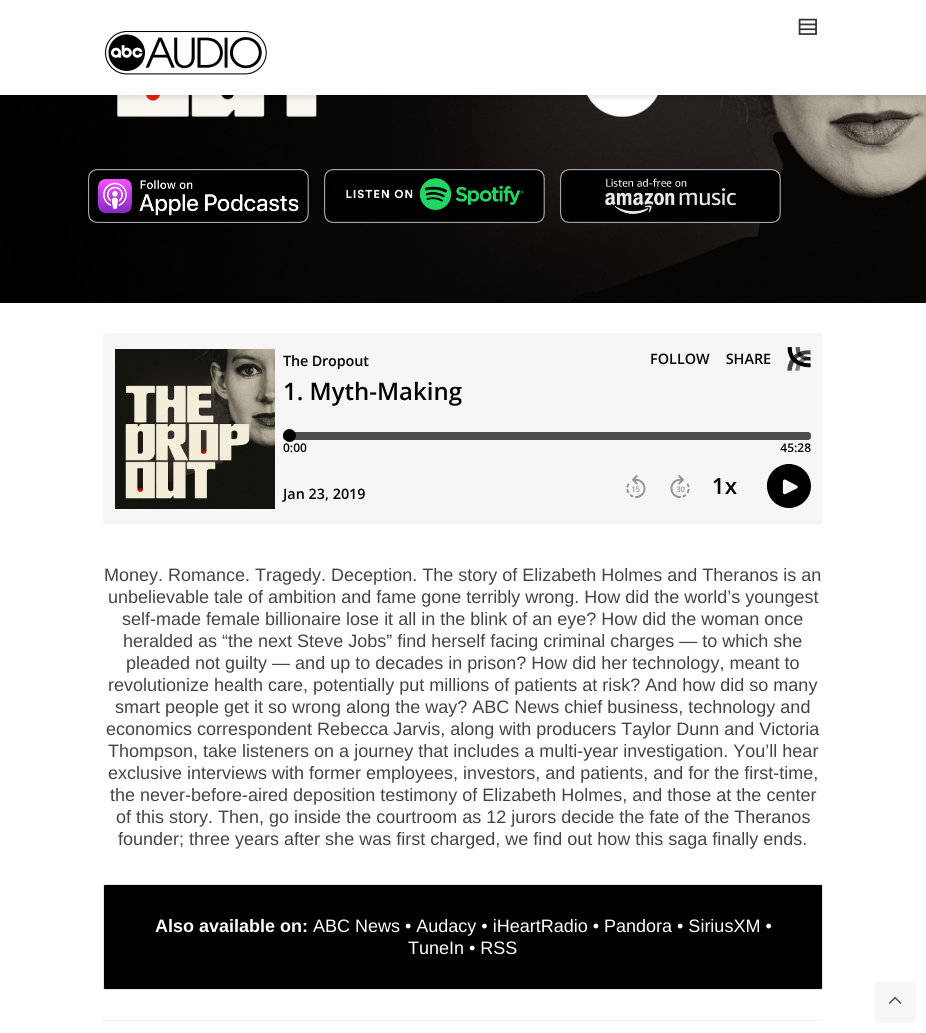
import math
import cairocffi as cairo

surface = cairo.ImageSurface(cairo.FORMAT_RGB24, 926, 1033)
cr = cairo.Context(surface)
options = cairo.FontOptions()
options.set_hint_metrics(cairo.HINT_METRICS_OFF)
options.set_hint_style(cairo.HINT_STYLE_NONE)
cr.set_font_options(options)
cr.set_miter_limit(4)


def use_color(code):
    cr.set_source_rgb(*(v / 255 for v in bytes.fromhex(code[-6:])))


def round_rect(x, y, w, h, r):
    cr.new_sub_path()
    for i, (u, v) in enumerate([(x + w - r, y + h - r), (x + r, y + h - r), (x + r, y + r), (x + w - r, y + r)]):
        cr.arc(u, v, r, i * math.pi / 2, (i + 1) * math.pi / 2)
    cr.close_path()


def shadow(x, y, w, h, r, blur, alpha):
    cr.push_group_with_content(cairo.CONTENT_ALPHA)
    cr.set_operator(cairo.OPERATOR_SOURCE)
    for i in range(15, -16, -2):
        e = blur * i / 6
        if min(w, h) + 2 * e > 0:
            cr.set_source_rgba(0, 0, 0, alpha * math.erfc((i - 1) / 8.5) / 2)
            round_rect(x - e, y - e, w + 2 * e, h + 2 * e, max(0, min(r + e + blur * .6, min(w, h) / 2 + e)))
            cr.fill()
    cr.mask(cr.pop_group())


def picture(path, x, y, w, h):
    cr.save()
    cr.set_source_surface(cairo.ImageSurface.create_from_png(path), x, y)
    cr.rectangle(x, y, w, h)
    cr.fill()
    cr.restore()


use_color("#ffffff")
cr.paint()
picture("img3.png", 0, 95, 926, 208)
picture("img4.png", 117, 95, 541, 22)
use_color("#000000")
shadow(0, 3, 926, 95, 0, 2.5, 0.1)
use_color("#ffffff")
cr.rectangle(0, 0, 926, 95)
cr.fill()
picture("img1.png", 798, 18, 19, 17)
picture("img2.png", 104, 31, 163, 44)
picture("img5.png", 88, 169, 221, 54)
picture("img6.png", 324, 169, 221, 54)
picture("img7.png", 560, 169, 221, 54)
picture("img8.png", 103, 333, 720, 192)
cr.select_font_face("Liberation Sans")
cr.set_font_size(18)
use_color("#444444")
cr.move_to(104, 581)
cr.show_text("Money. Romance. Tragedy. Deception. The story of Elizabeth Holmes and Theranos is an")
cr.move_to(108, 603)
cr.show_text("unbelievable tale of ambition and fame gone terribly wrong. How did the world’s youngest")
cr.move_to(122, 625)
cr.show_text("self-made female billionaire lose it all in the blink of an eye? How did the woman once")
cr.move_to(123, 647)
cr.show_text("heralded as “the next Steve Jobs” find herself facing criminal charges — to which she")
cr.move_to(126, 669)
cr.show_text("pleaded not guilty — and up to decades in prison? How did her technology, meant to")
cr.move_to(108, 691)
cr.show_text("revolutionize health care, potentially put millions of patients at risk? And how did so many")
cr.move_to(115, 713)
cr.show_text("smart people get it so wrong along the way? ABC News chief business, technology and")
cr.move_to(106, 735)
cr.show_text("economics correspondent Rebecca Jarvis, along with producers Taylor Dunn and Victoria")
cr.move_to(108, 757)
cr.show_text("Thompson, take listeners on a journey that includes a multi-year investigation. You’ll hear")
cr.move_to(108, 779)
cr.show_text("exclusive interviews with former employees, investors, and patients, and for the first-time,")
cr.move_to(110, 801)
cr.show_text("the never-before-aired deposition testimony of Elizabeth Holmes, and those at the center")
cr.move_to(116, 823)
cr.show_text("of this story. Then, go inside the courtroom as 12 jurors decide the fate of the Theranos")
cr.move_to(118, 845)
cr.show_text("founder; three years after she was first charged, we find out how this saga finally ends.")
use_color("#000000")
round_rect(103.5, 884.5, 719, 105, 1.5)
cr.fill_preserve()
use_color("#e4e4e4")
cr.set_line_width(1)
cr.stroke()
cr.select_font_face("Liberation Sans", cairo.FONT_SLANT_NORMAL, cairo.FONT_WEIGHT_BOLD)
use_color("#ffffff")
cr.move_to(155, 932)
cr.show_text("Also available on:")
cr.select_font_face("Liberation Sans")
cr.move_to(313, 932)
cr.show_text("ABC News • Audacy • iHeartRadio • Pandora • SiriusXM •")
cr.move_to(408, 954)
cr.show_text("TuneIn • RSS")
cr.new_path()
cr.move_to(103, 1020.5)
cr.line_to(823, 1020.5)
use_color("#e4e4e4")
cr.set_dash([1, 1])
cr.stroke()
use_color("#f7f7f7")
round_rect(874, 982, 42, 41, 4)
cr.fill()
picture("img9.png", 888, 996, 14, 8)
surface.write_to_png("result.png")
